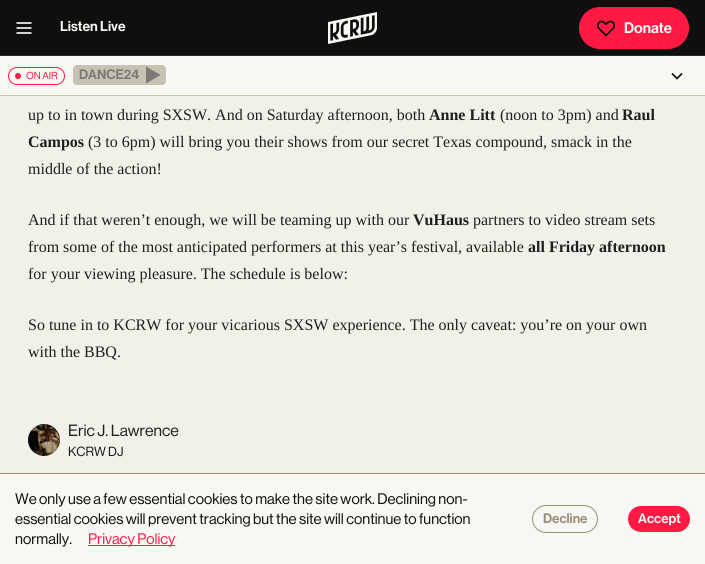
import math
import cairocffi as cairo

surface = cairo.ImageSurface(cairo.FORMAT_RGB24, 705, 564)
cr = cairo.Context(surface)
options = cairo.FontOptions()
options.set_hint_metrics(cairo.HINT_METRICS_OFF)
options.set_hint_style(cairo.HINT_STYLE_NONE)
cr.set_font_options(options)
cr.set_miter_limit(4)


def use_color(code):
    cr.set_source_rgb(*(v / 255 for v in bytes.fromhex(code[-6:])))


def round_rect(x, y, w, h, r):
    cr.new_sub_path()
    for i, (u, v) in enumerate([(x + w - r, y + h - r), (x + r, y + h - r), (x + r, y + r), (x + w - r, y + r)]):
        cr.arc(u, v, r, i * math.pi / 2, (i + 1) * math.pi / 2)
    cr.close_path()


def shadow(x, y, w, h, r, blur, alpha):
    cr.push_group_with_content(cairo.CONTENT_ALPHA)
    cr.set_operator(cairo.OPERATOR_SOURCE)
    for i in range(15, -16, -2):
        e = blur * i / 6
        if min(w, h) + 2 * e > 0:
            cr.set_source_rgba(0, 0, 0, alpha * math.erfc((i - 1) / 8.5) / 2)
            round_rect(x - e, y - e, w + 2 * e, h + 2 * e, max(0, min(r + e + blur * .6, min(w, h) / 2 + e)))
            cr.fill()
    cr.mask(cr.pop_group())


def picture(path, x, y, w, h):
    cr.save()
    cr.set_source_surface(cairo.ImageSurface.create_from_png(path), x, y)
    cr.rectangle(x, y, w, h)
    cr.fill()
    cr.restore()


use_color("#f1f1ea")
cr.paint()
use_color("#0f0f0f")
cr.rectangle(0, 0, 705, 55)
cr.fill()
use_color("#2b2b2a")
cr.rectangle(0, 55, 705, 1)
cr.fill()
picture("img1.png", 16, 22, 16, 12)
cr.select_font_face("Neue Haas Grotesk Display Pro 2 Medium")
cr.set_font_size(14)
use_color("#f7f7f3")
cr.move_to(60, 31)
cr.show_text("Listen Live")
picture("img2.png", 328, 12, 49, 32)
use_color("#ff1a44")
round_rect(579.5, 7.5, 109, 41, 20.5)
cr.fill_preserve()
cr.set_line_width(1)
cr.stroke()
picture("img3.png", 596, 20, 20, 17)
cr.set_font_size(15)
use_color("#f7f7f3")
cr.move_to(624, 33)
cr.show_text("Donate")
cr.rectangle(0, 56, 705, 39)
cr.fill()
use_color("#c7c4ae")
cr.rectangle(0, 95, 705, 1)
cr.fill()
round_rect(8.5, 67.5, 56, 17, 8.5)
use_color("#ff1a44")
cr.stroke()
cr.arc(18, 76, 3, 0, 2 * math.pi)
cr.fill()
cr.select_font_face("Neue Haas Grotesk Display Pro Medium")
cr.set_font_size(10)
cr.move_to(26, 79)
cr.show_text("ON AIR")
use_color("#efefef")
round_rect(73, 65, 93, 20, 4)
cr.fill()
cr.set_source_rgba(0.714, 0.694, 0.604, 0.7)
round_rect(73, 65, 93, 20, 4)
cr.fill()
cr.select_font_face("Neue Haas Grotesk Display Pro 2 Medium")
cr.set_font_size(13.5)
use_color("#7e7976")
cr.move_to(79, 79)
cr.show_text("DANCE24")
cr.new_path()
cr.move_to(146, 66.5)
cr.line_to(146, 83.5)
cr.line_to(160.5, 75)
cr.close_path()
cr.fill()
picture("img4.png", 671, 73, 12, 7)
cr.select_font_face("Liberation Serif")
cr.set_font_size(16)
use_color("#201e1d")
cr.move_to(28, 120)
cr.show_text("up to in town during SXSW. And on Saturday afternoon, both")
cr.select_font_face("Liberation Serif", cairo.FONT_SLANT_NORMAL, cairo.FONT_WEIGHT_BOLD)
cr.move_to(429, 120)
cr.show_text("Anne Litt")
cr.select_font_face("Liberation Serif")
cr.move_to(500, 120)
cr.show_text("(noon to 3pm) and")
cr.select_font_face("Liberation Serif", cairo.FONT_SLANT_NORMAL, cairo.FONT_WEIGHT_BOLD)
cr.move_to(622, 120)
cr.show_text("Raul")
cr.move_to(28, 147)
cr.show_text("Campos")
cr.select_font_face("Liberation Serif")
cr.move_to(88, 147)
cr.show_text("(3 to 6pm) will bring you their shows from our secret Texas compound, smack in the")
cr.move_to(28, 174)
cr.show_text("middle of the action!")
cr.move_to(28, 225)
cr.show_text("And if that weren’t enough, we will be teaming up with our")
cr.select_font_face("Liberation Serif", cairo.FONT_SLANT_NORMAL, cairo.FONT_WEIGHT_BOLD)
cr.move_to(413, 225)
cr.show_text("VuHaus")
cr.select_font_face("Liberation Serif")
cr.move_to(473, 225)
cr.show_text("partners to video stream sets")
cr.move_to(28, 252)
cr.show_text("from some of the most anticipated performers at this year’s festival, available")
cr.select_font_face("Liberation Serif", cairo.FONT_SLANT_NORMAL, cairo.FONT_WEIGHT_BOLD)
cr.move_to(528, 252)
cr.show_text("all Friday afternoon")
cr.select_font_face("Liberation Serif")
cr.move_to(28, 279)
cr.show_text("for your viewing pleasure. The schedule is below:")
cr.move_to(28, 330)
cr.show_text("So tune in to KCRW for your vicarious SXSW experience. The only caveat: you’re on your own")
cr.move_to(28, 357)
cr.show_text("with the BBQ.")
picture("img5.png", 28, 424, 32, 32)
cr.select_font_face("Neue Haas Grotesk Display Pro Medium")
cr.move_to(68, 436)
cr.show_text("Eric J. Lawrence")
cr.set_font_size(13)
cr.move_to(68, 456)
cr.show_text("KCRW DJ")
use_color("#670511")
shadow(0, 475, 705, 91, 0, 2, 0.25)
use_color("#f7f7f3")
cr.rectangle(0, 474, 705, 90)
cr.fill()
use_color("#9a9079")
cr.rectangle(0, 473, 705, 1)
cr.fill()
cr.set_font_size(15)
use_color("#0f0f0f")
cr.move_to(15, 504)
cr.show_text("We only use a few essential cookies to make the site work. Declining non-")
cr.move_to(15, 524)
cr.show_text("essential cookies will prevent tracking but the site will continue to function")
cr.move_to(15, 544)
cr.show_text("normally.")
use_color("#ff1a44")
cr.rectangle(88, 545, 87, 1)
cr.fill()
cr.move_to(88, 544)
cr.show_text("Privacy Policy")
round_rect(532.5, 505.5, 65, 27, 13.5)
use_color("#9a9079")
cr.stroke()
cr.select_font_face("Neue Haas Grotesk Display Pro 2 Medium")
cr.set_font_size(13.5)
cr.move_to(543, 523)
cr.show_text("Decline")
use_color("#ff1a44")
round_rect(628, 506, 62, 26, 13)
cr.fill()
use_color("#f7f7f3")
cr.move_to(638, 523)
cr.show_text("Accept")
surface.write_to_png("result.png")
